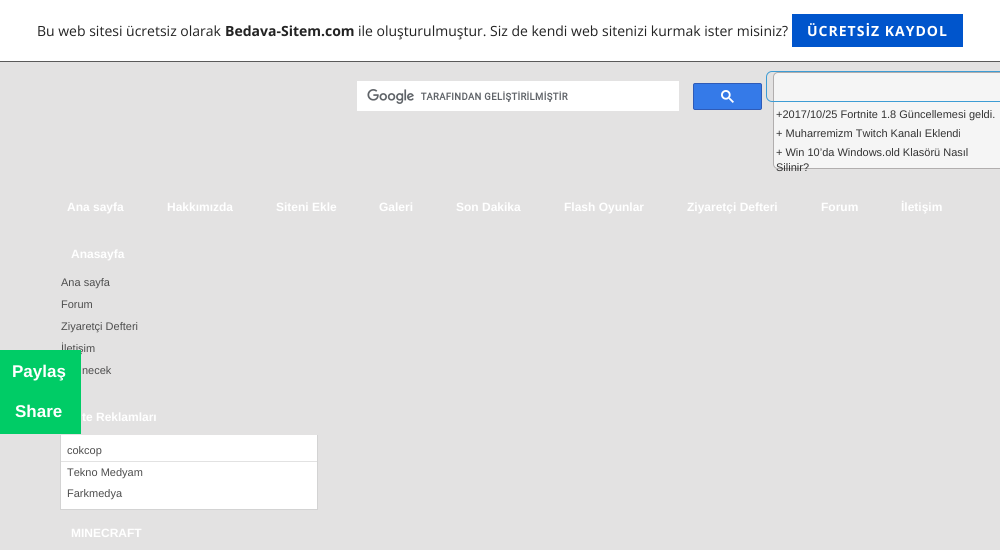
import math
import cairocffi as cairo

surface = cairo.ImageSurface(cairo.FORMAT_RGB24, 1000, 550)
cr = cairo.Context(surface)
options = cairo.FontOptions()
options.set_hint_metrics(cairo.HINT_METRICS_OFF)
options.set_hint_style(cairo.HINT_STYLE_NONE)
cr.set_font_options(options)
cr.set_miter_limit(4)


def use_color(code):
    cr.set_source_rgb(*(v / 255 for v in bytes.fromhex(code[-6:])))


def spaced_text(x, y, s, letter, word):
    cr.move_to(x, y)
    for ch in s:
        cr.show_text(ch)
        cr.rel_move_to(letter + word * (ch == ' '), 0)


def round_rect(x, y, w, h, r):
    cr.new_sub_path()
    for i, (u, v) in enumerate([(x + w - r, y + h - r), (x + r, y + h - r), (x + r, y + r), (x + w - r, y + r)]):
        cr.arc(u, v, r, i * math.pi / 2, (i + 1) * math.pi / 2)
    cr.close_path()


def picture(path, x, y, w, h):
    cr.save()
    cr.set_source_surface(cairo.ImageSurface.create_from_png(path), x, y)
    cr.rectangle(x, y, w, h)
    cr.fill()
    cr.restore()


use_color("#e3e2e2")
cr.paint()
use_color("#ffffff")
cr.rectangle(0, 0, 1000, 61)
cr.fill()
use_color("#5a5a5a")
cr.rectangle(0, 61, 1000, 1)
cr.fill()
cr.select_font_face("Open Sans")
cr.set_font_size(14)
use_color("#232323")
cr.move_to(37, 36)
cr.show_text("Bu web sitesi ücretsiz olarak")
cr.select_font_face("Open Sans", cairo.FONT_SLANT_NORMAL, cairo.FONT_WEIGHT_BOLD)
cr.move_to(225, 36)
cr.show_text("Bedava-Sitem.com")
cr.select_font_face("Open Sans")
cr.move_to(358, 36)
cr.show_text("ile oluşturulmuştur. Siz de kendi web sitenizi kurmak ister misiniz?")
use_color("#0055cc")
cr.rectangle(792, 14, 171, 33)
cr.fill()
cr.select_font_face("Open Sans", cairo.FONT_SLANT_NORMAL, cairo.FONT_WEIGHT_BOLD)
use_color("#ffffff")
spaced_text(807, 36, "ÜCRETSİZ KAYDOL", 1, 0)
cr.rectangle(357, 81, 322, 30)
cr.fill()
picture("img1.png", 367, 89, 201, 15)
use_color("#357ae8")
round_rect(693.5, 83.5, 68, 26, 1.5)
cr.fill_preserve()
use_color("#2f5bb7")
cr.set_line_width(1)
cr.stroke()
picture("img2.png", 721, 90, 13, 13)
use_color("#f5f5f5")
round_rect(773.5, 72.5, 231, 96, 4.5)
cr.fill_preserve()
use_color("#b1aeae")
cr.stroke()
round_rect(766.5, 71.5, 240, 30, 5.5)
use_color("#3d9cd4")
cr.stroke()
cr.select_font_face("Liberation Sans")
cr.set_font_size(11)
use_color("#333333")
cr.move_to(776, 118)
cr.show_text("+2017/10/25 Fortnite 1.8 Güncellemesi geldi.")
cr.move_to(776, 137)
cr.show_text("+ Muharremizm Twitch Kanalı Eklendi")
cr.move_to(776, 156)
cr.show_text("+ Win 10’da Windows.old Klasörü Nasıl")
cr.move_to(776, 171)
cr.show_text("Silinir?")
cr.select_font_face("Liberation Sans", cairo.FONT_SLANT_NORMAL, cairo.FONT_WEIGHT_BOLD)
cr.set_font_size(12)
use_color("#ffffff")
cr.move_to(67, 211)
cr.show_text("Ana sayfa")
cr.move_to(167, 211)
cr.show_text("Hakkımızda")
cr.move_to(276, 211)
cr.show_text("Siteni Ekle")
cr.move_to(379, 211)
cr.show_text("Galeri")
cr.move_to(456, 211)
cr.show_text("Son Dakika")
cr.move_to(564, 211)
cr.show_text("Flash Oyunlar")
cr.move_to(687, 211)
cr.show_text("Ziyaretçi Defteri")
cr.move_to(821, 211)
cr.show_text("Forum")
cr.move_to(901, 211)
cr.show_text("İletişim")
cr.select_font_face("Liberation Sans")
cr.set_font_size(11)
use_color("#4e4e4e")
cr.move_to(61, 352)
cr.show_text("İletişim")
use_color("#00cc66")
cr.rectangle(0, 350, 81, 84)
cr.fill()
cr.select_font_face("Liberation Sans", cairo.FONT_SLANT_NORMAL, cairo.FONT_WEIGHT_BOLD)
cr.set_font_size(17)
use_color("#ffffff")
cr.move_to(12, 377)
cr.show_text("Paylaş")
cr.move_to(15, 417)
cr.show_text("Share")
cr.set_font_size(12)
cr.move_to(71, 258)
cr.show_text("Anasayfa")
cr.select_font_face("Liberation Sans")
cr.set_font_size(11)
use_color("#4e4e4e")
cr.move_to(61, 286)
cr.show_text("Ana sayfa")
cr.move_to(61, 308)
cr.show_text("Forum")
cr.move_to(61, 330)
cr.show_text("Ziyaretçi Defteri")
cr.move_to(82, 374)
cr.show_text("necek")
cr.select_font_face("Liberation Sans", cairo.FONT_SLANT_NORMAL, cairo.FONT_WEIGHT_BOLD)
cr.set_font_size(12)
use_color("#ffffff")
cr.move_to(82, 421)
cr.show_text("te Reklamları")
cr.rectangle(61, 435, 256, 74)
cr.fill()
use_color("#d3d3d3")
cr.rectangle(317, 435, 1, 75)
cr.fill()
cr.rectangle(60, 509, 258, 1)
cr.fill()
cr.rectangle(60, 435, 1, 75)
cr.fill()
use_color("#e2e2e2")
cr.rectangle(61, 461, 256, 1)
cr.fill()
cr.select_font_face("Liberation Sans")
cr.set_font_size(11)
use_color("#4e4e4e")
cr.move_to(67, 454)
cr.show_text("cokcop")
cr.move_to(67, 476)
cr.show_text("Tekno Medyam")
cr.move_to(67, 497)
cr.show_text("Farkmedya")
cr.select_font_face("Liberation Sans", cairo.FONT_SLANT_NORMAL, cairo.FONT_WEIGHT_BOLD)
cr.set_font_size(12)
use_color("#ffffff")
cr.move_to(71, 537)
cr.show_text("MINECRAFT")
surface.write_to_png("result.png")
